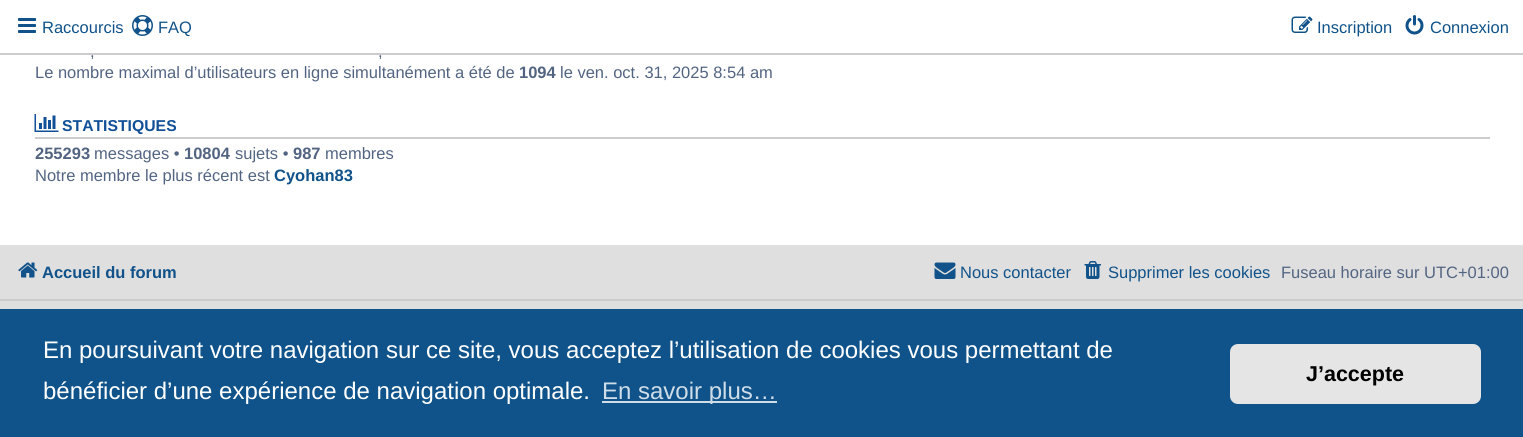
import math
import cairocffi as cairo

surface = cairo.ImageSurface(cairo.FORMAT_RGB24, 1523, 437)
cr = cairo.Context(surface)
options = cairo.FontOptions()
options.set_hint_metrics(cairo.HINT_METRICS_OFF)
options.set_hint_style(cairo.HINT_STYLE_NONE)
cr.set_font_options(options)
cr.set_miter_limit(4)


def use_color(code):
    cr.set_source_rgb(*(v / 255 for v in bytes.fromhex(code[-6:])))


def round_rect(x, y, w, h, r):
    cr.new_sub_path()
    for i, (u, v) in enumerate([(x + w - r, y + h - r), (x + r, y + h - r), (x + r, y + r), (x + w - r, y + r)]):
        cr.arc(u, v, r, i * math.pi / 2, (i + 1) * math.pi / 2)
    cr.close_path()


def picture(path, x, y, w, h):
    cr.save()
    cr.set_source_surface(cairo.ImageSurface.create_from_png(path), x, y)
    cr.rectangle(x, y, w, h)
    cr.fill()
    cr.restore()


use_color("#ffffff")
cr.paint()
use_color("#cccccc")
cr.rectangle(0, 53, 1523, 2)
cr.fill()
picture("img1.png", 18, 18, 18, 15)
cr.select_font_face("Liberation Sans")
cr.set_font_size(16.5)
use_color("#105289")
cr.move_to(42, 33)
cr.show_text("Raccourcis")
picture("img2.png", 132, 15, 21, 21)
cr.move_to(158, 33)
cr.show_text("FAQ")
picture("img3.png", 1291, 16, 22, 17)
cr.move_to(1317, 33)
cr.show_text("Inscription")
picture("img4.png", 1405, 15, 19, 20)
cr.move_to(1430, 33)
cr.show_text("Connexion")
use_color("#536482")
cr.move_to(90, 57)
cr.show_text(",")
cr.move_to(378, 57)
cr.show_text(",")
cr.move_to(35, 78)
cr.show_text("Le nombre maximal d’utilisateurs en ligne simultanément a été de")
cr.select_font_face("Liberation Sans", cairo.FONT_SLANT_NORMAL, cairo.FONT_WEIGHT_BOLD)
cr.move_to(519, 78)
cr.show_text("1094")
cr.select_font_face("Liberation Sans")
cr.move_to(560, 78)
cr.show_text("le ven. oct. 31, 2025 8:54 am")
use_color("#cccccc")
cr.rectangle(35, 137, 1455, 2)
cr.fill()
picture("img5.png", 34, 114, 25, 18)
cr.select_font_face("Liberation Sans", cairo.FONT_SLANT_NORMAL, cairo.FONT_WEIGHT_BOLD)
cr.set_font_size(15.75)
use_color("#115098")
cr.move_to(62, 131)
cr.show_text("STATISTIQUES")
cr.set_font_size(16.5)
use_color("#536482")
cr.move_to(35, 159)
cr.show_text("255293")
cr.select_font_face("Liberation Sans")
cr.move_to(94, 159)
cr.show_text("messages •")
cr.select_font_face("Liberation Sans", cairo.FONT_SLANT_NORMAL, cairo.FONT_WEIGHT_BOLD)
cr.move_to(184, 159)
cr.show_text("10804")
cr.select_font_face("Liberation Sans")
cr.move_to(235, 159)
cr.show_text("sujets •")
cr.select_font_face("Liberation Sans", cairo.FONT_SLANT_NORMAL, cairo.FONT_WEIGHT_BOLD)
cr.move_to(293, 159)
cr.show_text("987")
cr.select_font_face("Liberation Sans")
cr.move_to(325, 159)
cr.show_text("membres")
cr.move_to(35, 181)
cr.show_text("Notre membre le plus récent est")
cr.select_font_face("Liberation Sans", cairo.FONT_SLANT_NORMAL, cairo.FONT_WEIGHT_BOLD)
use_color("#105289")
cr.move_to(274, 181)
cr.show_text("Cyohan83")
use_color("#dfdfdf")
cr.rectangle(0, 245, 1523, 64)
cr.fill()
use_color("#cccccc")
cr.rectangle(0, 299, 1523, 2)
cr.fill()
picture("img6.png", 18, 262, 20, 16)
use_color("#105289")
cr.move_to(42, 278)
cr.show_text("Accueil du forum")
picture("img7.png", 934, 262, 22, 17)
cr.select_font_face("Liberation Sans")
cr.move_to(960, 278)
cr.show_text("Nous contacter")
picture("img8.png", 1084, 261, 17, 18)
cr.move_to(1108, 278)
cr.show_text("Supprimer les cookies")
use_color("#536482")
cr.move_to(1281, 278)
cr.show_text("Fuseau horaire sur UTC+01:00")
use_color("#0f538a")
cr.rectangle(0, 309, 1523, 128)
cr.fill()
cr.set_font_size(24)
use_color("#ffffff")
cr.move_to(43, 358)
cr.show_text("En poursuivant votre navigation sur ce site, vous acceptez l’utilisation de cookies vous permettant de")
cr.move_to(43, 399)
cr.show_text("bénéficier d’une expérience de navigation optimale.")
use_color("#cfdde8")
cr.rectangle(602, 401, 175, 2)
cr.fill()
cr.move_to(602, 399)
cr.show_text("En savoir plus…")
use_color("#e5e5e5")
round_rect(1230, 344, 251, 60, 8)
cr.fill()
cr.select_font_face("Liberation Sans", cairo.FONT_SLANT_NORMAL, cairo.FONT_WEIGHT_BOLD)
cr.set_font_size(21.5)
use_color("#000000")
cr.move_to(1306, 381)
cr.show_text("J’accepte")
surface.write_to_png("result.png")
